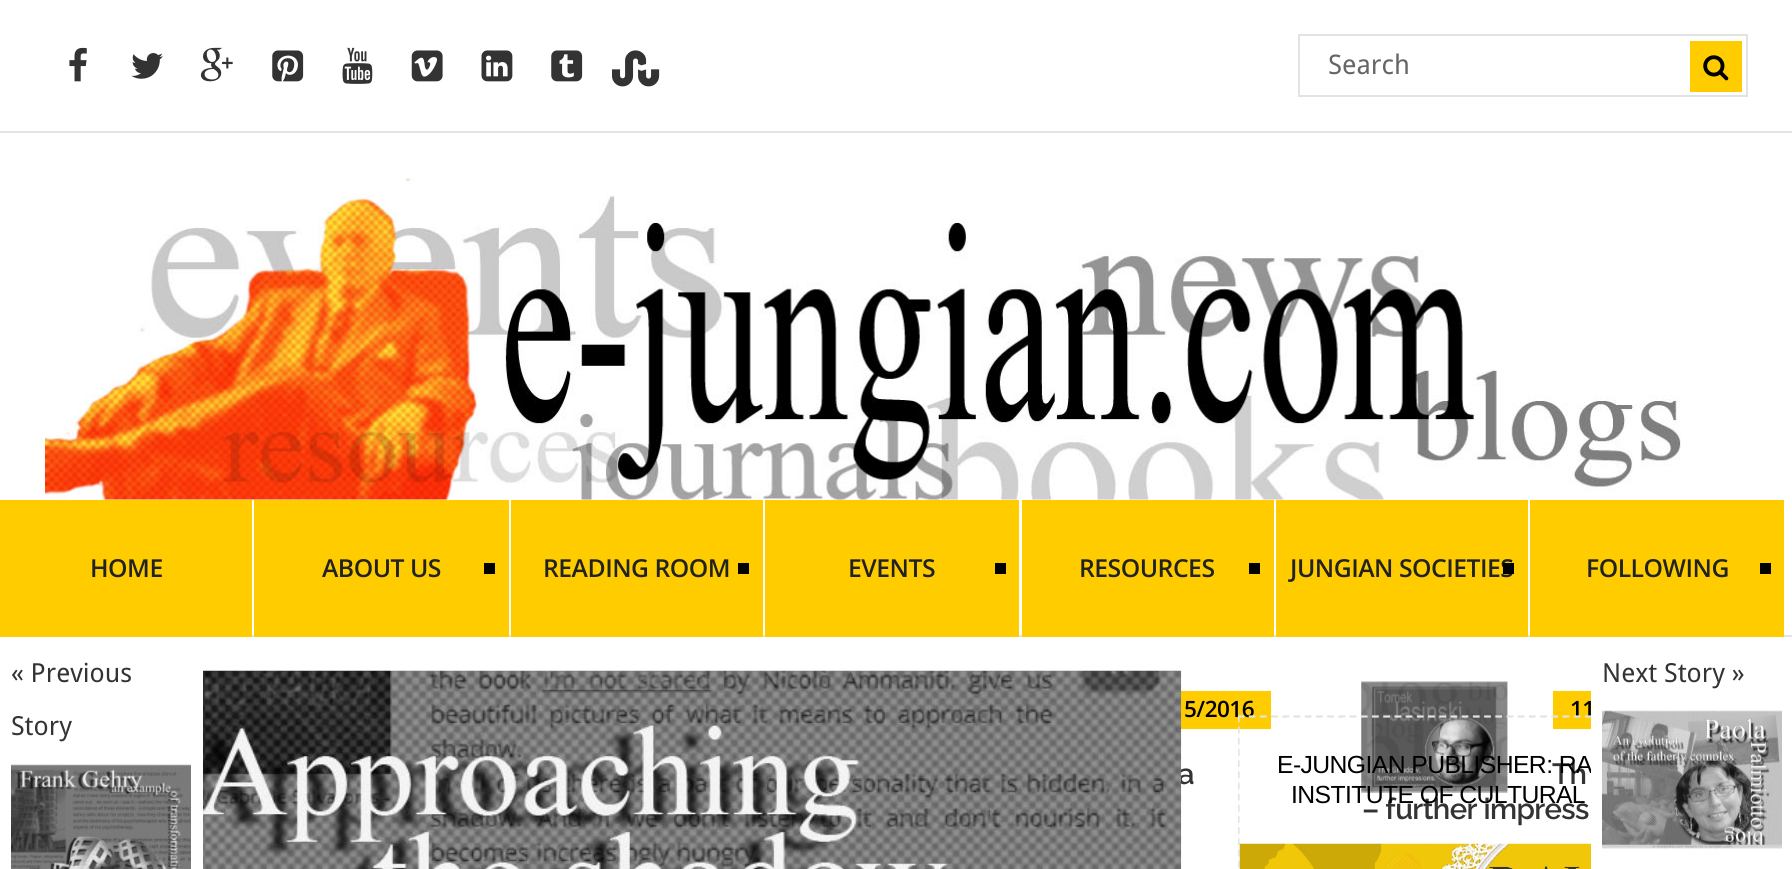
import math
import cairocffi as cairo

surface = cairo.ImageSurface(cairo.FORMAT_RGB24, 1792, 869)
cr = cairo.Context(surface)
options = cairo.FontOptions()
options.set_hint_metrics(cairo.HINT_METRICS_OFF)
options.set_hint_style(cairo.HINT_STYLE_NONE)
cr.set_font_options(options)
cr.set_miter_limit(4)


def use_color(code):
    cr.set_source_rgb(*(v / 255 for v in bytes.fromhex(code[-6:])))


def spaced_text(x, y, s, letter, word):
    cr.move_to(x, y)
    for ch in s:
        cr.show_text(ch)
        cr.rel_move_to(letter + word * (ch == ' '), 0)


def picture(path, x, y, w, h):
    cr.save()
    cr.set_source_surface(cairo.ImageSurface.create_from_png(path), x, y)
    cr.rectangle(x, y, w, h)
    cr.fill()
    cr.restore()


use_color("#ffffff")
cr.paint()
picture("img1.png", 69, 47, 18, 35)
picture("img2.png", 131, 53, 32, 26)
picture("img3.png", 200, 47, 33, 35)
picture("img4.png", 272, 50, 32, 32)
picture("img5.png", 342, 47, 31, 37)
picture("img6.png", 411, 50, 32, 32)
picture("img7.png", 481, 50, 32, 32)
picture("img8.png", 551, 50, 32, 32)
picture("img9.png", 612, 50, 48, 37)
cr.rectangle(1299, 35, 448, 61)
use_color("#e3e3e3")
cr.stroke()
cr.select_font_face("Droid Sans")
cr.set_font_size(27)
use_color("#666666")
cr.move_to(1328, 74)
cr.show_text("Search")
use_color("#ffcc00")
cr.rectangle(1690, 41, 52, 51)
cr.fill()
picture("img10.png", 1703, 55, 26, 26)
use_color("#e3e3e3")
cr.rectangle(0, 131, 1792, 2)
cr.fill()
cr.rectangle(252, 635, 1540, 2)
cr.fill()
picture("img11.png", 45, 177, 1636, 323)
use_color("#ffcc00")
cr.rectangle(0, 500, 252, 137)
cr.fill()
cr.select_font_face("Open Sans SemiBold")
cr.set_font_size(24.75)
use_color("#222222")
spaced_text(90, 577, "HOME", -0.5, 0)
use_color("#ffcc00")
cr.rectangle(254, 500, 255, 137)
cr.fill()
use_color("#222222")
spaced_text(322, 577, "ABOUT US", -0.5, 0)
use_color("#000000")
cr.rectangle(484, 563, 11, 11)
cr.fill()
use_color("#ffcc00")
cr.rectangle(511, 500, 252, 137)
cr.fill()
use_color("#222222")
spaced_text(543, 577, "READING ROOM", -0.5, 0)
use_color("#000000")
cr.rectangle(738, 563, 11, 11)
cr.fill()
use_color("#ffcc00")
cr.rectangle(765, 500, 254, 137)
cr.fill()
use_color("#222222")
spaced_text(848, 577, "EVENTS", -0.5, 0)
use_color("#000000")
cr.rectangle(995, 563, 11, 11)
cr.fill()
use_color("#ffcc00")
cr.rectangle(1022, 500, 252, 137)
cr.fill()
use_color("#222222")
spaced_text(1079, 577, "RESOURCES", -0.5, 0)
use_color("#000000")
cr.rectangle(1249, 563, 11, 11)
cr.fill()
use_color("#ffcc00")
cr.rectangle(1276, 500, 252, 137)
cr.fill()
use_color("#222222")
spaced_text(1290, 577, "JUNGIAN SOCIETIES", -0.5, 0)
use_color("#000000")
cr.rectangle(1503, 563, 11, 11)
cr.fill()
use_color("#ffcc00")
cr.rectangle(1530, 500, 254, 137)
cr.fill()
use_color("#222222")
spaced_text(1586, 577, "FOLLOWING", -0.5, 0)
use_color("#000000")
cr.rectangle(1760, 563, 11, 11)
cr.fill()
cr.select_font_face("Droid Sans")
cr.set_font_size(26.25)
use_color("#333333")
cr.move_to(11, 682)
cr.show_text("« Previous")
cr.move_to(11, 735)
cr.show_text("Story")
picture("img12.png", 11, 764, 180, 105)
use_color("#ffcc00")
cr.rectangle(1553, 691, 38, 38)
cr.fill()
cr.select_font_face("Open Sans SemiBold")
cr.set_font_size(22.5)
use_color("#000000")
spaced_text(1570, 717, "11", -0.5, 0)
use_color("#ffcc00")
cr.rectangle(1181, 691, 90, 38)
cr.fill()
use_color("#000000")
spaced_text(1184, 717, "5/2016", -0.5, 0)
picture("img14.png", 1361, 681, 147, 112)
cr.save()
cr.rectangle(1238, 671, 510, 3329)
cr.clip()
cr.new_path()
cr.move_to(1237.5, 716.5)
cr.line_to(1748, 716.5)
use_color("#e3e3e3")
cr.set_line_width(2.2)
cr.set_dash([6.75, 4.46])
cr.stroke()
cr.restore()
cr.select_font_face("Raleway SemiBold")
cr.set_font_size(29.25)
use_color("#333333")
spaced_text(1552, 784, "Th", -0.6, 0)
cr.select_font_face("Liberation Sans")
cr.set_font_size(24.75)
use_color("#000000")
spaced_text(1277, 773, "E-JUNGIAN PUBLISHER: RA", -0.6, 0)
use_color("#ffffff")
cr.rectangle(1591, 700, 157, 73)
cr.fill()
cr.select_font_face("Droid Sans")
cr.set_font_size(26.25)
use_color("#333333")
cr.move_to(1602, 682)
cr.show_text("Next Story »")
picture("img13.png", 1602, 710, 180, 139)
cr.select_font_face("Raleway SemiBold")
cr.set_font_size(29.25)
spaced_text(1178, 784, "a", -0.6, 0)
spaced_text(1362, 819, "– further impress", -0.6, 0)
picture("img15.png", 203, 670, 979, 199)
cr.save()
cr.rectangle(1238, 671, 510, 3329)
cr.clip()
cr.new_path()
cr.move_to(1238.5, 715.5)
cr.line_to(1238.5, 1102.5)
use_color("#e3e3e3")
cr.set_line_width(2.2)
cr.set_dash([6.75, 4.43])
cr.stroke()
cr.restore()
cr.select_font_face("Liberation Sans")
cr.set_font_size(24.75)
use_color("#000000")
spaced_text(1291, 803, "INSTITUTE OF CULTURAL", -0.6, 0)
picture("img16.png", 1239, 843, 352, 26)
surface.write_to_png("result.png")
